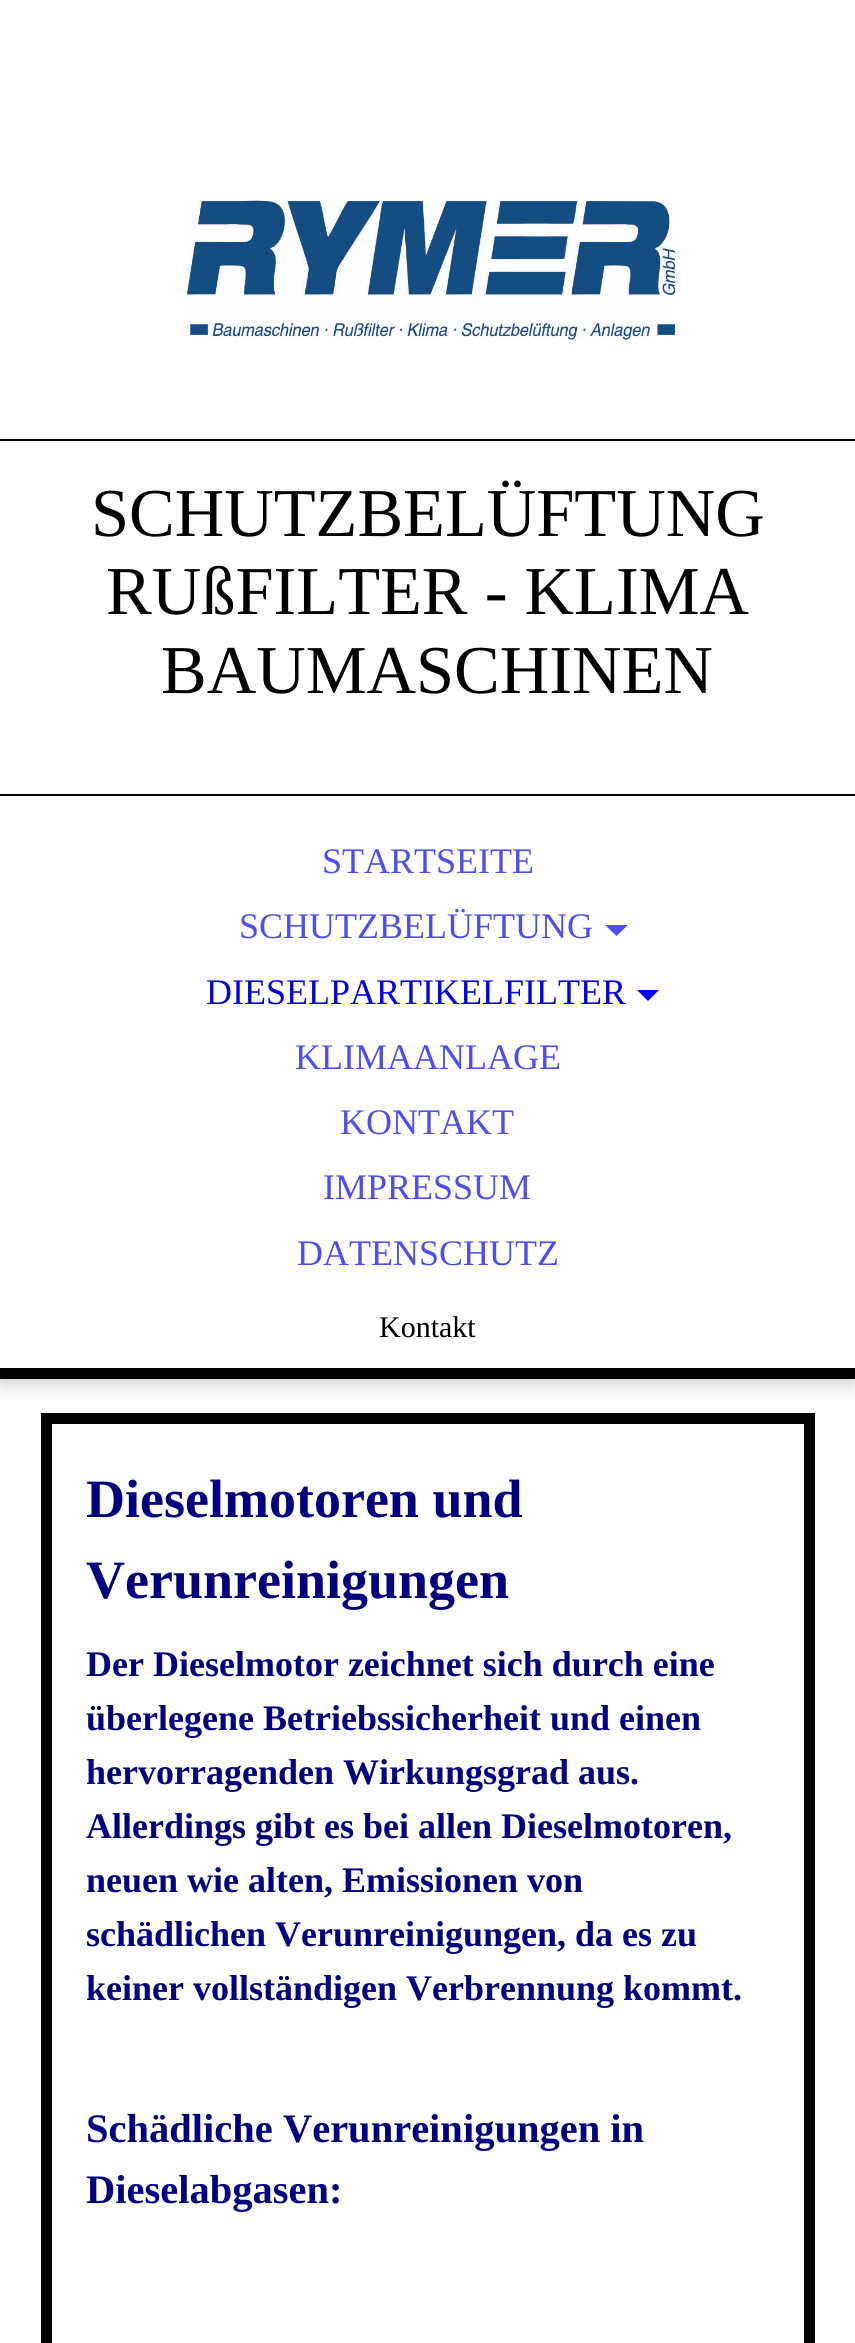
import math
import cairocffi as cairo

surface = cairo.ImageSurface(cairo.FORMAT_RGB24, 855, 2343)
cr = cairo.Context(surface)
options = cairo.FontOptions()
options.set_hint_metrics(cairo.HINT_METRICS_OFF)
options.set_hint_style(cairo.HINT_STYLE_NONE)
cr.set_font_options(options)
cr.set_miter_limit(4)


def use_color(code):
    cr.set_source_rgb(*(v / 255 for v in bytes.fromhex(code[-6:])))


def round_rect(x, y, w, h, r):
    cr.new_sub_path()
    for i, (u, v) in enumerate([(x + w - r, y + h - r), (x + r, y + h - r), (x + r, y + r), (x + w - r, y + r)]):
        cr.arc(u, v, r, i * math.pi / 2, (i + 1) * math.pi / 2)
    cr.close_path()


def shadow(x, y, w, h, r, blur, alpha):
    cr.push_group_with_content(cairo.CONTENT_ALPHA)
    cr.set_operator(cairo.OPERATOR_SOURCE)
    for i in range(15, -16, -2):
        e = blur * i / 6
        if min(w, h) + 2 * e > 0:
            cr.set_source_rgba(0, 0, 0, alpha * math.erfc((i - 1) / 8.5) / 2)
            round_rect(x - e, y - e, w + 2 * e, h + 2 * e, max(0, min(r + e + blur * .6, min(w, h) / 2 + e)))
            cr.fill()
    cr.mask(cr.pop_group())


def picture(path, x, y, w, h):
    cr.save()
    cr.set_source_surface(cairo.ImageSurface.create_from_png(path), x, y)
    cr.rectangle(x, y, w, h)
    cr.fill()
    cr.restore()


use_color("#ffffff")
cr.paint()
cr.save()
cr.rectangle(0, 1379, 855, 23)
cr.clip()
use_color("#b5b5b5")
shadow(0, 0, 855, 1379, 0, 11, 1)
cr.restore()
use_color("#000000")
cr.rectangle(0, 1368, 855, 11)
cr.fill()
picture("img1.png", 184, 200, 491, 140)
cr.rectangle(0, 439, 855, 2)
cr.fill()
cr.select_font_face("Liberation Serif")
cr.set_font_size(68.5)
cr.move_to(91, 536)
cr.show_text("SCHUTZBELÜFTUNG")
cr.move_to(106, 614)
cr.show_text("RUßFILTER - KLIMA")
cr.move_to(161, 693)
cr.show_text("BAUMASCHINEN")
cr.rectangle(0, 794, 855, 2)
cr.fill()
cr.set_font_size(36)
use_color("#4d4df3")
cr.move_to(322, 873)
cr.show_text("STARTSEITE")
cr.move_to(239, 938)
cr.show_text("SCHUTZBELÜFTUNG")
cr.new_path()
cr.move_to(605, 925)
cr.line_to(628, 925)
cr.line_to(616.5, 936)
cr.close_path()
cr.fill()
use_color("#0000ee")
cr.move_to(206, 1004)
cr.show_text("DIESELPARTIKELFILTER")
cr.new_path()
cr.move_to(637, 990)
cr.line_to(659, 990)
cr.line_to(648, 1001)
cr.close_path()
cr.fill()
use_color("#4d4df3")
cr.move_to(295, 1069)
cr.show_text("KLIMAANLAGE")
cr.move_to(340, 1134)
cr.show_text("KONTAKT")
cr.move_to(323, 1199)
cr.show_text("IMPRESSUM")
cr.move_to(297, 1265)
cr.show_text("DATENSCHUTZ")
cr.set_font_size(30)
use_color("#000000")
cr.move_to(379, 1337)
cr.show_text("Kontakt")
cr.rectangle(46.5, 1418.5, 763, 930)
cr.set_line_width(11)
cr.stroke()
cr.select_font_face("Liberation Serif", cairo.FONT_SLANT_NORMAL, cairo.FONT_WEIGHT_BOLD)
cr.set_font_size(54)
use_color("#000080")
cr.move_to(86, 1517)
cr.show_text("Dieselmotoren und")
cr.move_to(86, 1598)
cr.show_text("Verunreinigungen")
cr.set_font_size(36)
cr.move_to(86, 1676)
cr.show_text("Der Dieselmotor zeichnet sich durch eine")
cr.move_to(86, 1730)
cr.show_text("überlegene Betriebssicherheit und einen")
cr.move_to(86, 1784)
cr.show_text("hervorragenden Wirkungsgrad aus.")
cr.move_to(86, 1838)
cr.show_text("Allerdings gibt es bei allen Dieselmotoren,")
cr.move_to(86, 1892)
cr.show_text("neuen wie alten, Emissionen von")
cr.move_to(86, 1946)
cr.show_text("schädlichen Verunreinigungen, da es zu")
cr.move_to(86, 2000)
cr.show_text("keiner vollständigen Verbrennung kommt.")
cr.set_font_size(40.5)
cr.move_to(86, 2142)
cr.show_text("Schädliche Verunreinigungen in")
cr.move_to(86, 2203)
cr.show_text("Dieselabgasen:")
surface.write_to_png("result.png")
